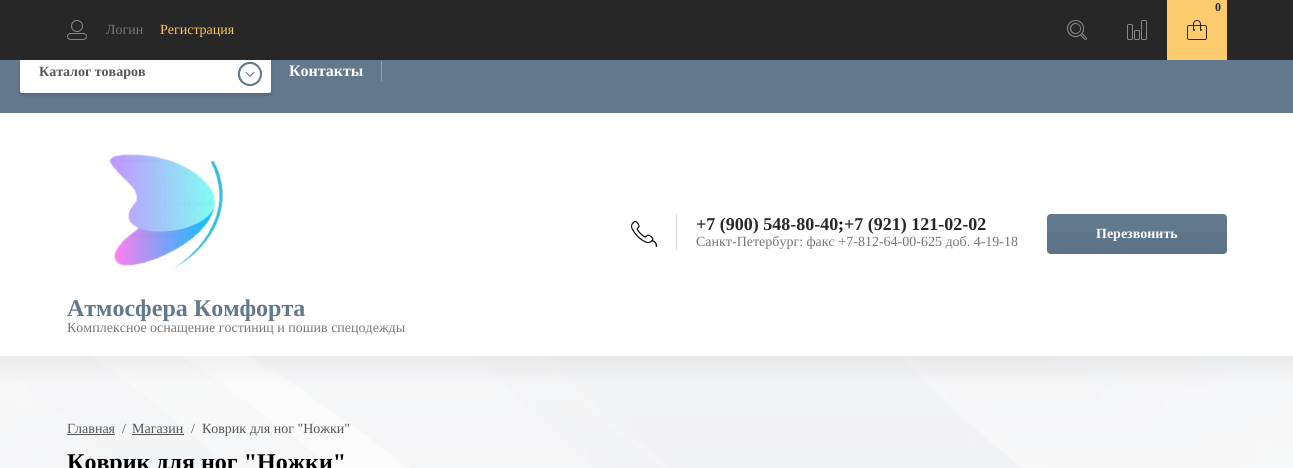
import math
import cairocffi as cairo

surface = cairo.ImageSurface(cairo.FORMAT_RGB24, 1293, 468)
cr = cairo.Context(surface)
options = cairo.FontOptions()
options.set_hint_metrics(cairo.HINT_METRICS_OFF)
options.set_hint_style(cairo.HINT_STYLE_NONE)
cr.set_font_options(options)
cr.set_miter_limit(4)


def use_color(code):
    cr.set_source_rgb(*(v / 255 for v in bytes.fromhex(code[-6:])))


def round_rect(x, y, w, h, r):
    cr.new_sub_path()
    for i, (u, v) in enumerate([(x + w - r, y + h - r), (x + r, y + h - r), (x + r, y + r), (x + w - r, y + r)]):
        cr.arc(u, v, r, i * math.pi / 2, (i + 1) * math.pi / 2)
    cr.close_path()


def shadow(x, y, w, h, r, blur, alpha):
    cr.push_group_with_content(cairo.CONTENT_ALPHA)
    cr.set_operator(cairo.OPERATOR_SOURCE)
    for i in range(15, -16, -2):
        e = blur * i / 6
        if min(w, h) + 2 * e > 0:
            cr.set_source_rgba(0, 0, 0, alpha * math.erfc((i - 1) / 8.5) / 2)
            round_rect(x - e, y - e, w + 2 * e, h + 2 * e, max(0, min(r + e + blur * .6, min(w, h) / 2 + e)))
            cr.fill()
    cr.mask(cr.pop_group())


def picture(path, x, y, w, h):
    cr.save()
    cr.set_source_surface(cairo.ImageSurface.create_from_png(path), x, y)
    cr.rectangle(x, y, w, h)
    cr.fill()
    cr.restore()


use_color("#ffffff")
cr.paint()
use_color("#62788d")
cr.rectangle(0, 60, 1293, 53)
cr.fill()
use_color("#000000")
shadow(20, 55, 251, 40, 2, 1.5, 0.15)
use_color("#ffffff")
round_rect(20, 53, 251, 40, 2)
cr.fill()
use_color("#272727")
cr.rectangle(0, 0, 1293, 60)
cr.fill()
use_color("#fccb6e")
cr.rectangle(1167, 0, 60, 60)
cr.fill()
picture("img1.png", 1187, 20, 20, 20)
cr.select_font_face("Liberation Serif", cairo.FONT_SLANT_NORMAL, cairo.FONT_WEIGHT_BOLD)
cr.set_font_size(12)
use_color("#272727")
cr.move_to(1215, 11)
cr.show_text("0")
picture("img2.png", 1067, 20, 20, 20)
picture("img3.png", 1127, 20, 20, 20)
picture("img4.png", 67, 20, 20, 20)
cr.select_font_face("Liberation Serif")
cr.set_font_size(14)
use_color("#777777")
cr.move_to(106, 34)
cr.show_text("Логин")
use_color("#fec75b")
cr.move_to(160, 34)
cr.show_text("Регистрация")
cr.select_font_face("Liberation Serif", cairo.FONT_SLANT_NORMAL, cairo.FONT_WEIGHT_BOLD)
use_color("#555555")
cr.move_to(39, 76)
cr.show_text("Каталог товаров")
picture("img5.png", 238, 62, 24, 24)
cr.arc(250, 74, 11, 0, 2 * math.pi)
use_color("#62788d")
cr.stroke()
cr.set_font_size(16)
use_color("#ffffff")
cr.move_to(289, 76)
cr.show_text("Контакты")
use_color("#909fae")
cr.rectangle(381, 61, 1, 20)
cr.fill()
picture("img6.png", 0, 356, 1293, 112)
cr.select_font_face("Liberation Serif")
cr.set_font_size(14)
use_color("#555555")
cr.move_to(67, 433)
cr.show_text("Главная")
cr.rectangle(67, 434, 48, 1)
cr.fill()
cr.move_to(122, 433)
cr.show_text("/")
cr.move_to(132, 433)
cr.show_text("Магазин")
cr.rectangle(132, 434, 52, 1)
cr.fill()
cr.move_to(191, 433)
cr.show_text("/  Коврик для ног \"Ножки\"")
cr.select_font_face("Liberation Serif", cairo.FONT_SLANT_NORMAL, cairo.FONT_WEIGHT_BOLD)
cr.set_font_size(24)
use_color("#000000")
cr.move_to(67, 470)
cr.show_text("Коврик для ног \"Ножки\"")
picture("img7.png", 631, 221, 26, 26)
use_color("#d8d8d8")
cr.rectangle(676, 214, 1, 36)
cr.fill()
cr.set_font_size(18)
use_color("#272727")
cr.move_to(696, 230)
cr.show_text("+7 (900) 548-80-40")
use_color("#000000")
cr.move_to(838, 230)
cr.show_text(";")
use_color("#272727")
cr.move_to(844, 230)
cr.show_text("+7 (921) 121-02-02")
cr.select_font_face("Liberation Serif")
cr.set_font_size(14)
use_color("#777777")
cr.move_to(696, 246)
cr.show_text("Санкт-Петербург: факс +7-812-64-00-625 доб. 4-19-18")
use_color("#62788d")
round_rect(1047, 214, 180, 40, 4)
cr.fill()
cr.set_source_rgba(0.384, 0.471, 0.553, 0.05)
cr.rectangle(1047, 214, 180, 40)
cr.fill()
gradient = cairo.LinearGradient(1137, 214, 1137, 254)
gradient.add_color_stop_rgba(0.02, 0, 0, 0, 0)
gradient.add_color_stop_rgba(1, 0, 0, 0, 0.05)
cr.set_source(gradient)
cr.rectangle(1047, 232, 180, 22)
cr.fill()
cr.select_font_face("Liberation Serif", cairo.FONT_SLANT_NORMAL, cairo.FONT_WEIGHT_BOLD)
use_color("#ffffff")
cr.move_to(1096, 238)
cr.show_text("Перезвонить")
picture("img8.png", 109, 154, 114, 116)
cr.set_font_size(24)
use_color("#62788d")
cr.move_to(67, 316)
cr.show_text("Атмосфера Комфорта")
cr.select_font_face("Liberation Serif")
cr.set_font_size(14)
use_color("#777777")
cr.move_to(67, 332)
cr.show_text("Комплексное оснащение гостиниц и пошив спецодежды")
surface.write_to_png("result.png")
